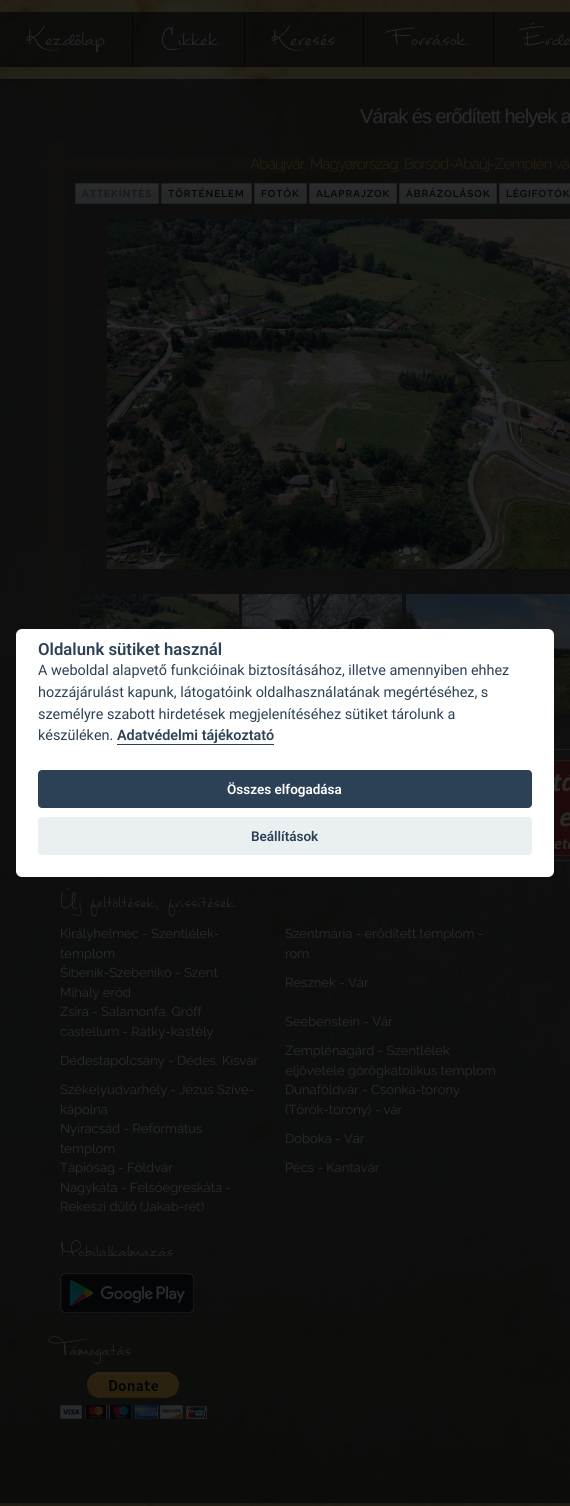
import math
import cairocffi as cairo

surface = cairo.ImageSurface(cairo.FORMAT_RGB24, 570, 1506)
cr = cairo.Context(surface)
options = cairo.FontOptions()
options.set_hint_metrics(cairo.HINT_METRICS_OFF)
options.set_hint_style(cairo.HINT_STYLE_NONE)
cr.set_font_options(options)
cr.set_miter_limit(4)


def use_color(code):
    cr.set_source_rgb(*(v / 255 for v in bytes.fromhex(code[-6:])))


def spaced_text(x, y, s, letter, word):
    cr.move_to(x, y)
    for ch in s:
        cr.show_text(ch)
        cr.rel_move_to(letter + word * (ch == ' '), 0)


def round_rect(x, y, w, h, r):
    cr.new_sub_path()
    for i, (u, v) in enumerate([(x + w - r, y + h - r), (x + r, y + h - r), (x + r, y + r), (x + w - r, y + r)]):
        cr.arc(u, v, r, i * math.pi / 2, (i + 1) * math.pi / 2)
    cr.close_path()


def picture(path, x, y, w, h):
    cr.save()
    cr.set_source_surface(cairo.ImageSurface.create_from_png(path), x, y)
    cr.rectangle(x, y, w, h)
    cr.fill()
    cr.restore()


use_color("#ffffff")
cr.paint()
picture("img1.png", 0, 0, 570, 1506)
cr.set_source_rgba(0.012, 0.02, 0.027, 0.7)
cr.rectangle(0, 12, 570, 55)
cr.fill()
use_color("#030507")
cr.rectangle(132, 12, 1, 55)
cr.fill()
cr.select_font_face("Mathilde")
cr.set_font_size(40)
use_color("#2a2b2d")
cr.move_to(27, 45)
cr.show_text("Kezdőlap")
use_color("#030507")
cr.rectangle(244, 12, 1, 55)
cr.fill()
use_color("#2a2b2d")
cr.move_to(160, 45)
cr.show_text("Cikkek")
use_color("#030507")
cr.rectangle(363, 12, 1, 55)
cr.fill()
use_color("#2a2b2d")
cr.move_to(272, 45)
cr.show_text("Keresés")
use_color("#030507")
cr.rectangle(493, 12, 1, 55)
cr.fill()
use_color("#2a2b2d")
cr.move_to(391, 45)
cr.show_text("Források")
cr.move_to(521, 45)
cr.show_text("Érde")
cr.select_font_face("Liberation Sans")
cr.set_font_size(20)
spaced_text(360, 123, "Várak és erődített helyek a", -1, 0)
picture("img2.png", 40, 138, 530, 491)
cr.select_font_face("Raleway Light")
cr.set_font_size(15)
use_color("#2a2214")
spaced_text(250, 169, "Abaújvár, Magyarország", -0.8, 0)
spaced_text(404, 169, "Borsod-Abaúj-Zemplén vá", -0.8, 0)
gradient = cairo.LinearGradient(117, 184, 117, 203)
gradient.add_color_stop_rgba(0, 0.165, 0.169, 0.176, 1)
gradient.add_color_stop_rgba(0.5, 0.157, 0.161, 0.169, 1)
gradient.add_color_stop_rgba(0.51, 0.145, 0.153, 0.161, 1)
gradient.add_color_stop_rgba(1, 0.157, 0.165, 0.173, 1)
cr.set_source(gradient)
cr.rectangle(76, 184, 82, 19)
cr.fill()
cr.rectangle(75.5, 183.5, 83, 20)
use_color("#1f2123")
cr.set_line_width(1)
cr.stroke()
cr.select_font_face("Raleway SemiBold")
cr.set_font_size(10)
use_color("#141617")
spaced_text(82, 197, "ÁTTEKINTÉS", 1, 0)
gradient = cairo.LinearGradient(207, 184, 207, 203)
gradient.add_color_stop_rgba(0, 0.165, 0.169, 0.176, 1)
gradient.add_color_stop_rgba(0.5, 0.157, 0.161, 0.169, 1)
gradient.add_color_stop_rgba(0.51, 0.145, 0.153, 0.161, 1)
gradient.add_color_stop_rgba(1, 0.157, 0.165, 0.173, 1)
cr.set_source(gradient)
cr.rectangle(162, 184, 89, 19)
cr.fill()
cr.rectangle(161.5, 183.5, 90, 20)
use_color("#1f2123")
cr.stroke()
use_color("#030507")
spaced_text(168, 197, "TÖRTÉNELEM", 1, 0)
gradient = cairo.LinearGradient(281, 184, 281, 203)
gradient.add_color_stop_rgba(0, 0.165, 0.169, 0.176, 1)
gradient.add_color_stop_rgba(0.5, 0.157, 0.161, 0.169, 1)
gradient.add_color_stop_rgba(0.51, 0.145, 0.153, 0.161, 1)
gradient.add_color_stop_rgba(1, 0.157, 0.165, 0.173, 1)
cr.set_source(gradient)
cr.rectangle(255, 184, 51, 19)
cr.fill()
cr.rectangle(254.5, 183.5, 52, 20)
use_color("#1f2123")
cr.stroke()
use_color("#030507")
spaced_text(261, 197, "FOTÓK", 1, 0)
gradient = cairo.LinearGradient(353, 184, 353, 203)
gradient.add_color_stop_rgba(0, 0.165, 0.169, 0.176, 1)
gradient.add_color_stop_rgba(0.5, 0.157, 0.161, 0.169, 1)
gradient.add_color_stop_rgba(0.51, 0.145, 0.153, 0.161, 1)
gradient.add_color_stop_rgba(1, 0.157, 0.165, 0.173, 1)
cr.set_source(gradient)
cr.rectangle(310, 184, 86, 19)
cr.fill()
cr.rectangle(309.5, 183.5, 87, 20)
use_color("#1f2123")
cr.stroke()
use_color("#030507")
spaced_text(316, 197, "ALAPRAJZOK", 1, 0)
gradient = cairo.LinearGradient(448, 184, 448, 203)
gradient.add_color_stop_rgba(0, 0.165, 0.169, 0.176, 1)
gradient.add_color_stop_rgba(0.5, 0.157, 0.161, 0.169, 1)
gradient.add_color_stop_rgba(0.51, 0.145, 0.153, 0.161, 1)
gradient.add_color_stop_rgba(1, 0.157, 0.165, 0.173, 1)
cr.set_source(gradient)
cr.rectangle(400, 184, 96, 19)
cr.fill()
cr.rectangle(399.5, 183.5, 97, 20)
use_color("#1f2123")
cr.stroke()
use_color("#030507")
spaced_text(406, 197, "ÁBRÁZOLÁSOK", 1, 0)
gradient = cairo.LinearGradient(539, 184, 539, 203)
gradient.add_color_stop_rgba(0, 0.165, 0.169, 0.176, 1)
gradient.add_color_stop_rgba(0.5, 0.157, 0.161, 0.169, 1)
gradient.add_color_stop_rgba(0.51, 0.145, 0.153, 0.161, 1)
gradient.add_color_stop_rgba(1, 0.157, 0.165, 0.173, 1)
cr.set_source(gradient)
cr.rectangle(500, 184, 70, 19)
cr.fill()
cr.rectangle(499.5, 183.5, 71, 20)
use_color("#1f2123")
cr.stroke()
use_color("#030507")
spaced_text(506, 197, "LÉGIFOTÓK", 1, 0)
picture("img3.png", 107, 219, 463, 350)
picture("img4.png", 79, 594, 160, 35)
picture("img5.png", 242, 594, 160, 35)
picture("img6.png", 406, 594, 164, 120)
use_color("#1b1d1f")
cr.rectangle(554, 749, 16, 1)
cr.fill()
picture("img7.png", 554, 760, 16, 96)
cr.rectangle(554, 860, 16, 1)
cr.fill()
cr.select_font_face("Mathilde")
cr.set_font_size(33.5)
use_color("#2a2b2d")
spaced_text(60, 907, "Új feltöltések, frissítések", 0, -1)
cr.select_font_face("Raleway")
cr.set_font_size(13)
cr.move_to(60, 938)
cr.show_text("Királyhelmec - Szentlélek-")
cr.move_to(60, 958)
cr.show_text("templom")
cr.move_to(285, 938)
cr.show_text("Szentmária - erődített templom -")
cr.move_to(285, 958)
cr.show_text("rom")
cr.move_to(60, 977)
cr.show_text("Šibenik-Szebenikó - Szent")
cr.move_to(60, 997)
cr.show_text("Mihály erőd")
cr.move_to(285, 987)
cr.show_text("Resznek - Vár")
cr.move_to(60, 1016)
cr.show_text("Zsira - Salamonfa, Gróff")
cr.move_to(60, 1036)
cr.show_text("castellum - Rátky-kastély")
cr.move_to(285, 1026)
cr.show_text("Seebenstein - Vár")
cr.move_to(60, 1065)
cr.show_text("Dédestapolcsány - Dédes, Kisvár")
cr.move_to(285, 1055)
cr.show_text("Zemplénagárd - Szentlélek")
cr.move_to(285, 1075)
cr.show_text("eljövetele görögkatolikus templom")
cr.move_to(60, 1094)
cr.show_text("Székelyudvarhely - Jézus Szíve-")
cr.move_to(60, 1114)
cr.show_text("kápolna")
cr.move_to(285, 1094)
cr.show_text("Dunaföldvár - Csonka-torony")
cr.move_to(285, 1114)
cr.show_text("(Török-torony) - vár")
cr.move_to(60, 1133)
cr.show_text("Nyíracsád - Református")
cr.move_to(60, 1153)
cr.show_text("templom")
cr.move_to(285, 1143)
cr.show_text("Doboka - Vár")
cr.move_to(60, 1172)
cr.show_text("Tápióság - Földvár")
cr.move_to(285, 1172)
cr.show_text("Pécs - Kantavár")
cr.move_to(60, 1192)
cr.show_text("Nagykáta - Felsőegreskáta -")
cr.move_to(60, 1211)
cr.show_text("Rekeszi dülő (Jakab-rét)")
cr.select_font_face("Mathilde")
cr.set_font_size(33.5)
cr.move_to(60, 1256)
cr.show_text("Mobilalkalmazás")
picture("img8.png", 60, 1273, 134, 40)
cr.move_to(60, 1355)
cr.show_text("Támogatás")
picture("img9.png", 60, 1372, 147, 47)
use_color("#ffffff")
round_rect(16, 629, 538, 248, 6)
cr.fill()
cr.select_font_face("Roboto SemiBold")
cr.set_font_size(16.75)
use_color("#2d4156")
cr.move_to(38, 655)
cr.show_text("Oldalunk sütiket használ")
cr.select_font_face("Roboto")
cr.set_font_size(14.4)
cr.move_to(38, 675)
cr.show_text("A weboldal alapvető funkcióinak biztosításához, illetve amennyiben ehhez")
cr.move_to(38, 697)
cr.show_text("hozzájárulást kapunk, látogatóink oldalhasználatának megértéséhez, s")
cr.move_to(38, 719)
cr.show_text("személyre szabott hirdetések megjelenítéséhez sütiket tárolunk a")
cr.move_to(38, 740)
cr.show_text("készüléken.")
cr.select_font_face("Roboto SemiBold")
cr.move_to(117, 740)
cr.show_text("Adatvédelmi tájékoztató")
cr.rectangle(117, 744, 157, 1)
cr.fill()
round_rect(38, 770, 494, 38, 4)
cr.fill()
cr.set_font_size(13.5)
use_color("#ffffff")
cr.move_to(227, 794)
cr.show_text("Összes elfogadása")
use_color("#eaeff2")
round_rect(38, 817, 494, 38, 4)
cr.fill()
use_color("#2d4156")
cr.move_to(251, 841)
cr.show_text("Beállítások")
surface.write_to_png("result.png")
